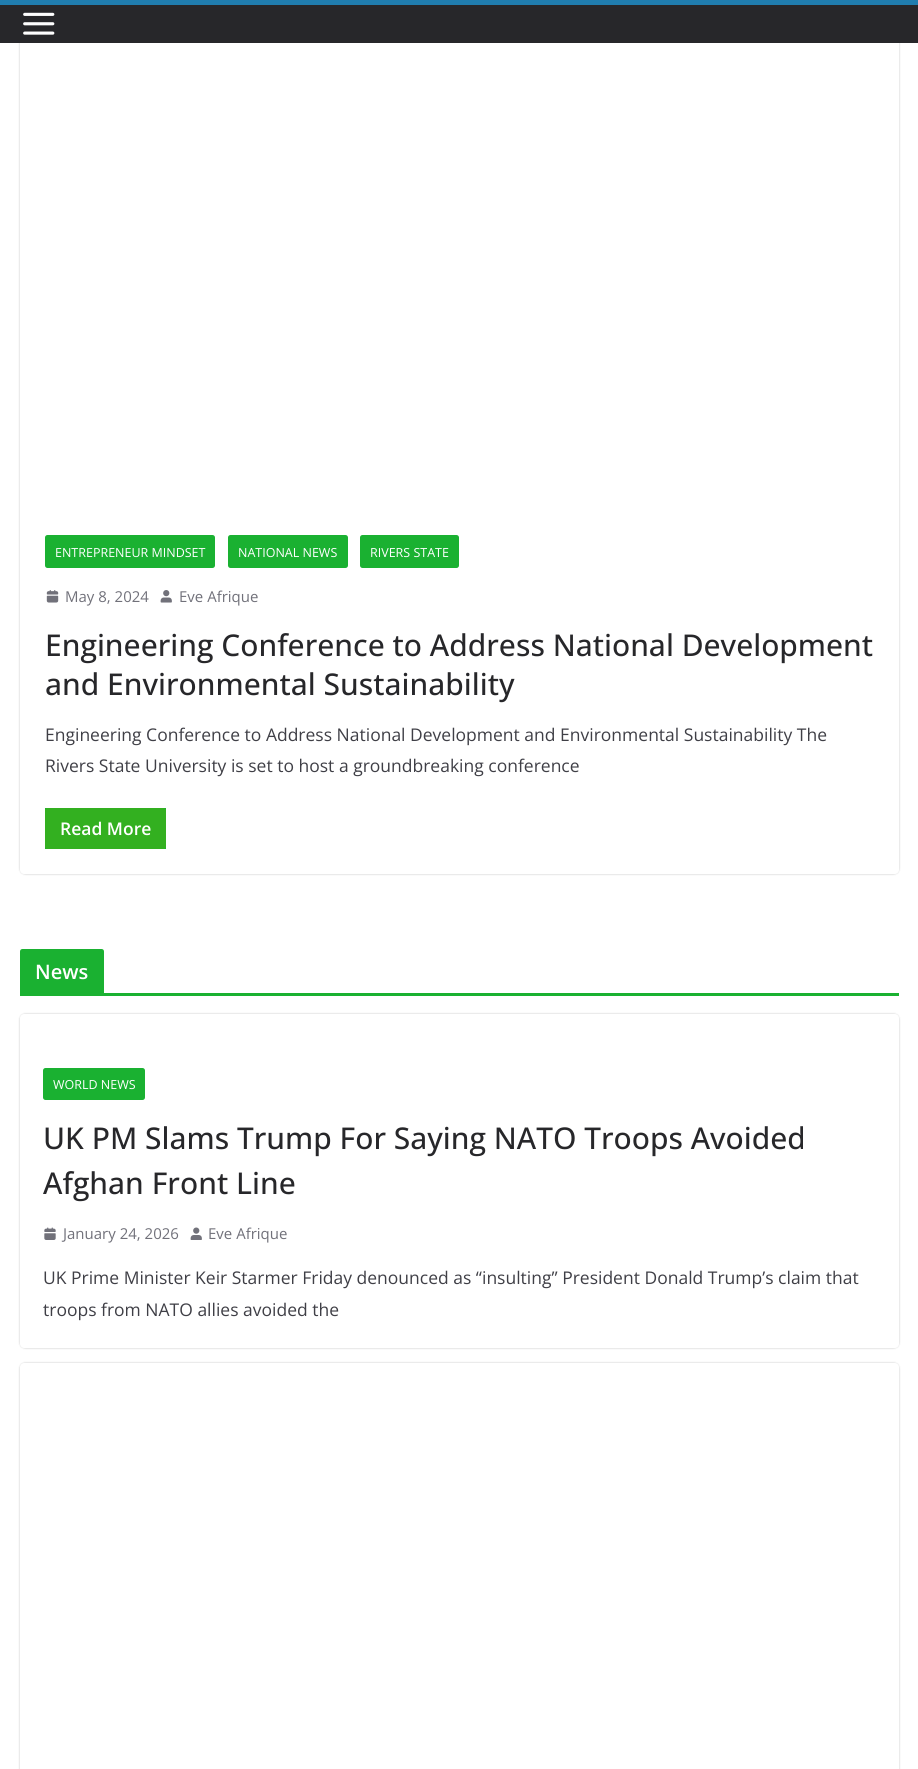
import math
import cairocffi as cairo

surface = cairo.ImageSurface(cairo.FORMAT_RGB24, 918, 1769)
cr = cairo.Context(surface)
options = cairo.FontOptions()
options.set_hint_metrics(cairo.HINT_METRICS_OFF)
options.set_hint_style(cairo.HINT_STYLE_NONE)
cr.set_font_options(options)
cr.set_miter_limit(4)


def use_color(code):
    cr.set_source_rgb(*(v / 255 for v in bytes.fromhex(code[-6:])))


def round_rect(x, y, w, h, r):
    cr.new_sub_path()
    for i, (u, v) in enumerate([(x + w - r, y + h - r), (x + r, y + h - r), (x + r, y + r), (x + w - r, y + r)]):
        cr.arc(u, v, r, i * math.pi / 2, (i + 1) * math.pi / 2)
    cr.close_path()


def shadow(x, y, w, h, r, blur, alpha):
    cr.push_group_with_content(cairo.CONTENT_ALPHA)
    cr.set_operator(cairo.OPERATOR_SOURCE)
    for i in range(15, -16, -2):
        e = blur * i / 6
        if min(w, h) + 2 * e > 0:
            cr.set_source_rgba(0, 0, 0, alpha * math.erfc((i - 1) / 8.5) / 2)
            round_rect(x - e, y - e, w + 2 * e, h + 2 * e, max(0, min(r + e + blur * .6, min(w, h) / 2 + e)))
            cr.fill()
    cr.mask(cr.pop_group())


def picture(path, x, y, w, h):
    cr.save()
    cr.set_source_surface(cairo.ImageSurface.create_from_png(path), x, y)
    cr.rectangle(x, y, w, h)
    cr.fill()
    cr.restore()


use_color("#ffffff")
cr.paint()
cr.save()
cr.set_fill_rule(cairo.FILL_RULE_EVEN_ODD)
cr.new_path()
cr.move_to(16, 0)
cr.line_to(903, 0)
cr.line_to(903, 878)
cr.line_to(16, 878)
cr.close_path()
cr.move_to(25, -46)
cr.line_to(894, -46)
cr.curve_to(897, -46, 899, -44, 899, -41)
cr.line_to(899, 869)
cr.curve_to(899, 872, 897, 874, 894, 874)
cr.line_to(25, 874)
cr.curve_to(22, 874, 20, 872, 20, 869)
cr.line_to(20, -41)
cr.curve_to(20, -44, 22, -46, 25, -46)
cr.close_path()
cr.clip()
use_color("#000000")
shadow(20, -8, 879, 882, 5, 1, 0.24)
cr.restore()
use_color("#27272a")
cr.rectangle(0, 5, 918, 38)
cr.fill()
use_color("#207daf")
cr.rectangle(0, 0, 918, 5)
cr.fill()
picture("img1.png", 23, 12, 32, 23)
use_color("#1ab131")
round_rect(45, 535, 170, 33, 2.5)
cr.fill()
cr.select_font_face("Open Sans")
cr.set_font_size(12.5)
use_color("#ffffff")
cr.move_to(55, 557)
cr.show_text("ENTREPRENEUR MINDSET")
use_color("#1ab131")
round_rect(228, 535, 120, 33, 2.5)
cr.fill()
use_color("#ffffff")
cr.move_to(238, 557)
cr.show_text("NATIONAL NEWS")
use_color("#1ab131")
round_rect(360, 535, 99, 33, 2.5)
cr.fill()
use_color("#ffffff")
cr.move_to(370, 557)
cr.show_text("RIVERS STATE")
picture("img2.png", 46, 590, 13, 13)
cr.set_font_size(15)
use_color("#71717a")
cr.move_to(65, 602)
cr.show_text("May 8, 2024")
picture("img3.png", 160, 590, 12, 13)
cr.move_to(179, 602)
cr.show_text("Eve Afrique")
cr.select_font_face("Open Sans Medium")
cr.set_font_size(30)
use_color("#27272a")
cr.move_to(45, 656)
cr.show_text("Engineering Conference to Address National Development")
cr.move_to(45, 695)
cr.show_text("and Environmental Sustainability")
cr.select_font_face("Open Sans")
cr.set_font_size(17.5)
use_color("#3f3f46")
cr.move_to(45, 741)
cr.show_text("Engineering Conference to Address National Development and Environmental Sustainability The")
cr.move_to(45, 772)
cr.show_text("Rivers State University is set to host a groundbreaking conference")
use_color("#1ab131")
cr.rectangle(45, 808, 121, 41)
cr.fill()
use_color("#33b020")
round_rect(45, 808, 121, 41, 2.5)
cr.fill()
cr.select_font_face("Open Sans SemiBold")
use_color("#ffffff")
cr.move_to(60, 835)
cr.show_text("Read More")
use_color("#1ab131")
cr.rectangle(20, 993, 879, 3)
cr.fill()
cr.new_path()
cr.move_to(22.5, 949)
cr.line_to(101.5, 949)
cr.curve_to(103, 949, 104, 950, 104, 951.5)
cr.line_to(104, 993)
cr.line_to(20, 993)
cr.line_to(20, 951.5)
cr.curve_to(20, 950, 21, 949, 22.5, 949)
cr.close_path()
cr.fill()
cr.set_font_size(20)
use_color("#ffffff")
cr.move_to(35, 979)
cr.show_text("News")
cr.save()
cr.set_fill_rule(cairo.FILL_RULE_EVEN_ODD)
cr.new_path()
cr.move_to(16, 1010)
cr.line_to(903, 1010)
cr.line_to(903, 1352)
cr.line_to(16, 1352)
cr.close_path()
cr.move_to(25, 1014)
cr.line_to(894, 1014)
cr.curve_to(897, 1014, 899, 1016, 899, 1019)
cr.line_to(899, 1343)
cr.curve_to(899, 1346, 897, 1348, 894, 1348)
cr.line_to(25, 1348)
cr.curve_to(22, 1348, 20, 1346, 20, 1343)
cr.line_to(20, 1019)
cr.curve_to(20, 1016, 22, 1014, 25, 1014)
cr.close_path()
cr.clip()
use_color("#000000")
shadow(20, 1014, 879, 334, 5, 1, 0.24)
cr.restore()
use_color("#1ab131")
round_rect(43, 1068, 102, 32, 2.5)
cr.fill()
cr.select_font_face("Open Sans")
cr.set_font_size(12.5)
use_color("#ffffff")
cr.move_to(53, 1089)
cr.show_text("WORLD NEWS")
cr.select_font_face("Open Sans Medium")
cr.set_font_size(30)
use_color("#27272a")
cr.move_to(43, 1149)
cr.show_text("UK PM Slams Trump For Saying NATO Troops Avoided")
cr.move_to(43, 1194)
cr.show_text("Afghan Front Line")
picture("img4.png", 44, 1227, 12, 13)
cr.select_font_face("Open Sans")
cr.set_font_size(15)
use_color("#71717a")
cr.move_to(63, 1239)
cr.show_text("January 24, 2026")
picture("img5.png", 190, 1227, 12, 13)
cr.move_to(208, 1239)
cr.show_text("Eve Afrique")
cr.set_font_size(17.5)
use_color("#3f3f46")
cr.move_to(43, 1284)
cr.show_text("UK Prime Minister Keir Starmer Friday denounced as “insulting” President Donald Trump’s claim that")
cr.move_to(43, 1316)
cr.show_text("troops from NATO allies avoided the")
cr.save()
cr.set_fill_rule(cairo.FILL_RULE_EVEN_ODD)
cr.new_path()
cr.move_to(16, 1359)
cr.line_to(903, 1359)
cr.line_to(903, 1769)
cr.line_to(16, 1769)
cr.close_path()
cr.move_to(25, 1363)
cr.line_to(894, 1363)
cr.curve_to(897, 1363, 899, 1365, 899, 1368)
cr.line_to(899, 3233)
cr.curve_to(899, 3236, 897, 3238, 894, 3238)
cr.line_to(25, 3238)
cr.curve_to(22, 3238, 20, 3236, 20, 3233)
cr.line_to(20, 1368)
cr.curve_to(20, 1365, 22, 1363, 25, 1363)
cr.close_path()
cr.clip()
use_color("#000000")
shadow(20, 1363, 879, 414, 5, 1, 0.24)
cr.restore()
surface.write_to_png("result.png")
